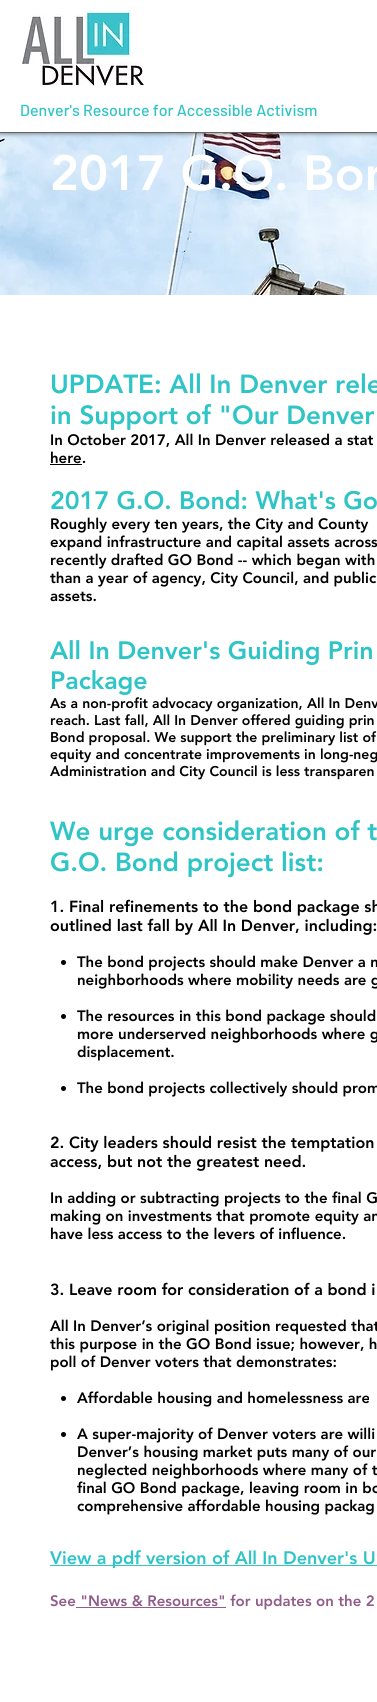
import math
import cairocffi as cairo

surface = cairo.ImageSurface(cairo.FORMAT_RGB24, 377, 1702)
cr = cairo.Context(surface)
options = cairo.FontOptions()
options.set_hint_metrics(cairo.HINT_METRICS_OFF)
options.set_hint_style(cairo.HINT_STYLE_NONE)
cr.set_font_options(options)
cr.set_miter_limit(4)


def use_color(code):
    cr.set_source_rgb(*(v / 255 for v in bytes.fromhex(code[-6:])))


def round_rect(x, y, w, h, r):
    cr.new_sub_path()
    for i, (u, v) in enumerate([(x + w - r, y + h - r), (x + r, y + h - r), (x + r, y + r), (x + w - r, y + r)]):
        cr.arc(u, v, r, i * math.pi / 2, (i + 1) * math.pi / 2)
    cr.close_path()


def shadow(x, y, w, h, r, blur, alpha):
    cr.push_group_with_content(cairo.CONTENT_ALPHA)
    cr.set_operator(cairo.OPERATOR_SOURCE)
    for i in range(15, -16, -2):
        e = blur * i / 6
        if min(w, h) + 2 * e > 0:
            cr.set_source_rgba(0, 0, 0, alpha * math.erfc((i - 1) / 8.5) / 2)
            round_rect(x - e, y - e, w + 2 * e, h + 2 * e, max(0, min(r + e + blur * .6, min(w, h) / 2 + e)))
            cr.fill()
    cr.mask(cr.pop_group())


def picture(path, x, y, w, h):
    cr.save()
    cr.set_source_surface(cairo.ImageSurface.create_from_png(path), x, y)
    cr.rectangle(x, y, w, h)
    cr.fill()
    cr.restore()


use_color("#ffffff")
cr.paint()
picture("img2.png", 0, 133, 377, 162)
use_color("#000000")
shadow(0, 0, 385, 133, 0, 2.5, 0.6)
use_color("#ffffff")
cr.rectangle(0, 0, 377, 132)
cr.fill()
use_color("#666666")
cr.rectangle(0, 132, 377, 1)
cr.fill()
picture("img1.png", 20, 6, 124, 80)
cr.select_font_face("Barlow Medium")
cr.set_font_size(16)
use_color("#2fc4c6")
cr.move_to(20, 116)
cr.show_text("Denver's Resource for Accessible Activism")
cr.select_font_face("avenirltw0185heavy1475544 Black")
cr.set_font_size(49)
use_color("#ffffff")
cr.move_to(50, 190)
cr.show_text("2017 G.O. Bon")
cr.set_font_size(26)
use_color("#2fc4c6")
cr.move_to(50, 393)
cr.show_text("UPDATE: All In Denver rele")
cr.move_to(50, 424)
cr.show_text("in Support of \"Our Denver")
cr.set_font_size(15)
use_color("#000000")
cr.move_to(50, 445)
cr.show_text("In October 2017, All In Denver released a stat")
cr.move_to(50, 463)
cr.show_text("here.")
cr.rectangle(50, 464, 32, 1)
cr.fill()
cr.set_font_size(25)
use_color("#2fc4c6")
cr.move_to(50, 509)
cr.show_text("2017 G.O. Bond: What's Go")
cr.set_font_size(15)
use_color("#000000")
cr.move_to(50, 529)
cr.show_text("Roughly every ten years, the City and County")
cr.move_to(50, 547)
cr.show_text("expand infrastructure and capital assets across")
cr.move_to(50, 565)
cr.show_text("recently drafted GO Bond -- which began with")
cr.move_to(50, 583)
cr.show_text("than a year of agency, City Council, and public")
cr.move_to(50, 601)
cr.show_text("assets.")
cr.set_font_size(25)
use_color("#2fc4c6")
cr.move_to(50, 659)
cr.show_text("All In Denver's Guiding Prin")
cr.move_to(50, 689)
cr.show_text("Package")
cr.set_font_size(14)
use_color("#000000")
cr.move_to(50, 708)
cr.show_text("As a non-profit advocacy organization, All In Denv")
cr.move_to(50, 725)
cr.show_text("reach. Last fall, All In Denver offered guiding prin")
cr.move_to(50, 742)
cr.show_text("Bond proposal. We support the preliminary list of")
cr.move_to(50, 759)
cr.show_text("equity and concentrate improvements in long-neg")
cr.move_to(50, 776)
cr.show_text("Administration and City Council is less transparen")
cr.set_font_size(26)
use_color("#2fc4c6")
cr.move_to(50, 840)
cr.show_text("We urge consideration of t")
cr.move_to(50, 871)
cr.show_text("G.O. Bond project list:")
cr.set_font_size(16)
use_color("#000000")
cr.move_to(50, 912)
cr.show_text("1. Final refinements to the bond package sh")
cr.move_to(50, 931)
cr.show_text("outlined last fall by All In Denver, including:")
cr.new_path()
cr.arc(63.5, 962.5, 2.5, 0, 2 * math.pi)
cr.fill()
cr.set_font_size(15)
cr.move_to(77, 967)
cr.show_text("The bond projects should make Denver a m")
cr.move_to(77, 985)
cr.show_text("neighborhoods where mobility needs are g")
cr.new_path()
cr.arc(63.5, 1016.5, 2.5, 0, 2 * math.pi)
cr.fill()
cr.move_to(77, 1021)
cr.show_text("The resources in this bond package should")
cr.move_to(77, 1039)
cr.show_text("more underserved neighborhoods where g")
cr.move_to(77, 1057)
cr.show_text("displacement.")
cr.new_path()
cr.arc(63.5, 1088.5, 2.5, 0, 2 * math.pi)
cr.fill()
cr.move_to(77, 1093)
cr.show_text("The bond projects collectively should prom")
cr.set_font_size(16)
cr.move_to(50, 1148)
cr.show_text("2. City leaders should resist the temptation")
cr.move_to(50, 1167)
cr.show_text("access, but not the greatest need.")
cr.set_font_size(15)
cr.move_to(50, 1203)
cr.show_text("In adding or subtracting projects to the final G")
cr.move_to(50, 1221)
cr.show_text("making on investments that promote equity an")
cr.move_to(50, 1239)
cr.show_text("have less access to the levers of influence.")
cr.set_font_size(16)
cr.move_to(50, 1295)
cr.show_text("3. Leave room for consideration of a bond i")
cr.set_font_size(15)
cr.move_to(50, 1331)
cr.show_text("All In Denver’s original position requested that")
cr.move_to(50, 1349)
cr.show_text("this purpose in the GO Bond issue; however, h")
cr.move_to(50, 1367)
cr.show_text("poll of Denver voters that demonstrates:")
cr.new_path()
cr.arc(63.5, 1398.5, 2.5, 0, 2 * math.pi)
cr.fill()
cr.move_to(77, 1403)
cr.show_text("Affordable housing and homelessness are")
cr.new_path()
cr.arc(63.5, 1434.5, 2.5, 0, 2 * math.pi)
cr.fill()
cr.move_to(77, 1439)
cr.show_text("A super-majority of Denver voters are willi")
cr.move_to(77, 1457)
cr.show_text("Denver’s housing market puts many of our")
cr.move_to(77, 1475)
cr.show_text("neglected neighborhoods where many of t")
cr.move_to(77, 1493)
cr.show_text("final GO Bond package, leaving room in bo")
cr.move_to(77, 1511)
cr.show_text("comprehensive affordable housing packag")
use_color("#2fc4c6")
cr.rectangle(50, 1565, 327, 1)
cr.fill()
cr.set_font_size(18)
cr.move_to(50, 1564)
cr.show_text("View a pdf version of All In Denver's U")
cr.set_font_size(15)
use_color("#915d8a")
cr.move_to(50, 1606)
cr.show_text("See \"News & Resources\" for updates on the 2")
cr.rectangle(76, 1607, 150, 1)
cr.fill()
surface.write_to_png("result.png")
